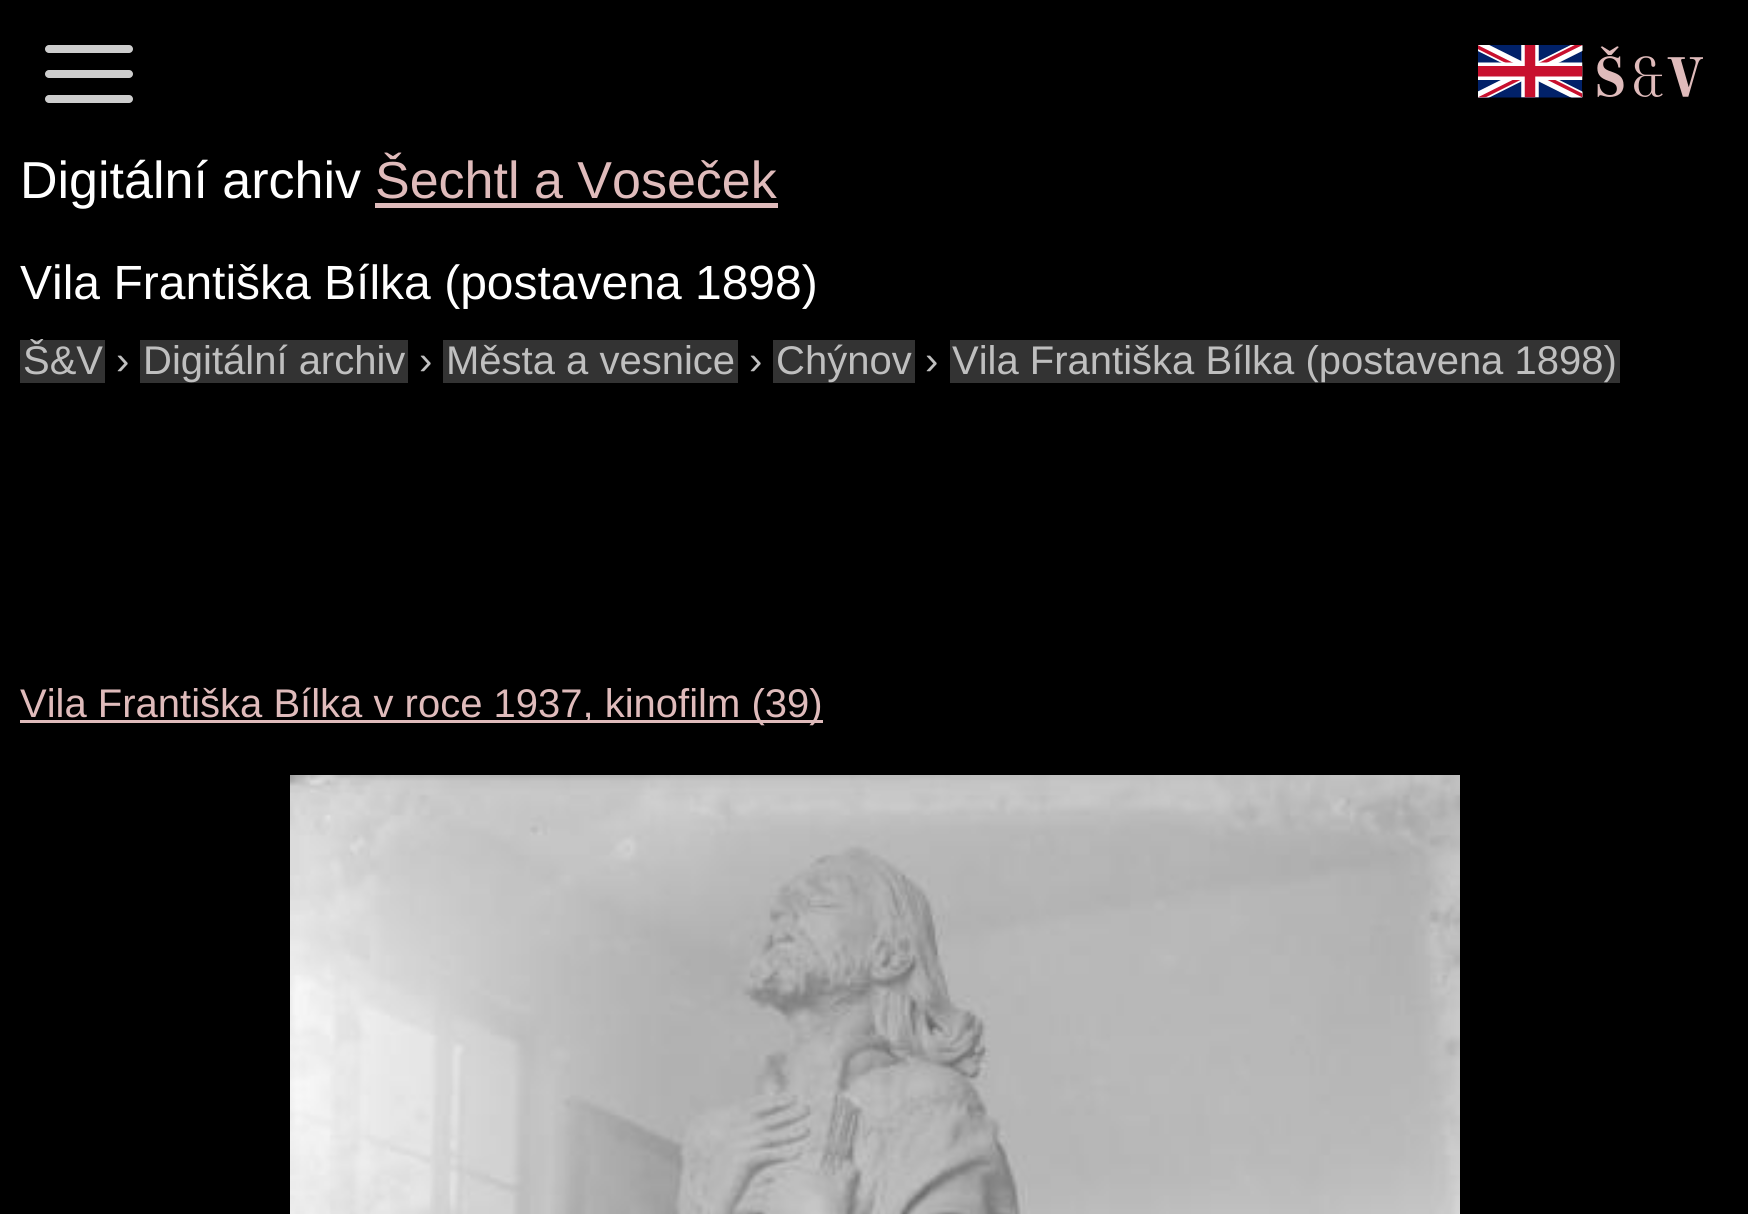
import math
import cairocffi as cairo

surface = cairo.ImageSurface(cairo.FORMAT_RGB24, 1748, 1214)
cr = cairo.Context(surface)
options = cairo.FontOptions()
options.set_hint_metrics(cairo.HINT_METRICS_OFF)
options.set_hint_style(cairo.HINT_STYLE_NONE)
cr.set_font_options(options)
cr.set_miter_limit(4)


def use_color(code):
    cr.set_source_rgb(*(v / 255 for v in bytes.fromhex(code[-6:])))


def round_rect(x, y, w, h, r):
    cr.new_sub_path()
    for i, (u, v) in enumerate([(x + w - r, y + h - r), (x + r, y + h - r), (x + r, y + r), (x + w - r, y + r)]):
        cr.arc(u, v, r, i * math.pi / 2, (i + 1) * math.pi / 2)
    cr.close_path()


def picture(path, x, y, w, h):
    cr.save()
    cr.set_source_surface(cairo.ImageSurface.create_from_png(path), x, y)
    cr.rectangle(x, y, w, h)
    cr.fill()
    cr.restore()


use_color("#000000")
cr.paint()
use_color("#cdcdcd")
round_rect(45, 45, 88, 8, 4)
cr.fill()
picture("img1.png", 1478, 45, 105, 53)
picture("img2.png", 1597, 46, 106, 51)
round_rect(45, 70, 88, 8, 4)
cr.fill()
round_rect(45, 95, 88, 8, 4)
cr.fill()
cr.select_font_face("Liberation Sans")
cr.set_font_size(52)
use_color("#ffffff")
cr.move_to(20, 198)
cr.show_text("Digitální archiv")
use_color("#dfbbbb")
cr.move_to(375, 198)
cr.show_text("Šechtl a Voseček")
cr.rectangle(375, 203, 403, 5)
cr.fill()
cr.set_font_size(48)
use_color("#ffffff")
cr.move_to(20, 299)
cr.show_text("Vila Františka Bílka (postavena 1898)")
use_color("#333333")
cr.rectangle(20, 340, 85, 43)
cr.fill()
cr.set_font_size(40)
use_color("#bfbfbf")
cr.move_to(23, 374)
cr.show_text("Š&V")
cr.move_to(116, 374)
cr.show_text("›")
use_color("#333333")
cr.rectangle(140, 340, 268, 43)
cr.fill()
use_color("#bfbfbf")
cr.move_to(143, 374)
cr.show_text("Digitální archiv")
cr.move_to(419, 374)
cr.show_text("›")
use_color("#333333")
cr.rectangle(443, 340, 295, 43)
cr.fill()
use_color("#bfbfbf")
cr.move_to(446, 374)
cr.show_text("Města a vesnice")
cr.move_to(749, 374)
cr.show_text("›")
use_color("#333333")
cr.rectangle(773, 340, 142, 43)
cr.fill()
use_color("#bfbfbf")
cr.move_to(776, 374)
cr.show_text("Chýnov")
cr.move_to(925, 374)
cr.show_text("›")
use_color("#333333")
cr.rectangle(950, 340, 670, 43)
cr.fill()
use_color("#bfbfbf")
cr.move_to(952, 374)
cr.show_text("Vila Františka Bílka (postavena 1898)")
use_color("#dfbbbb")
cr.rectangle(20, 720, 803, 3)
cr.fill()
cr.move_to(20, 717)
cr.show_text("Vila Františka Bílka v roce 1937, kinofilm (39)")
picture("img3.png", 290, 775, 1170, 439)
surface.write_to_png("result.png")
